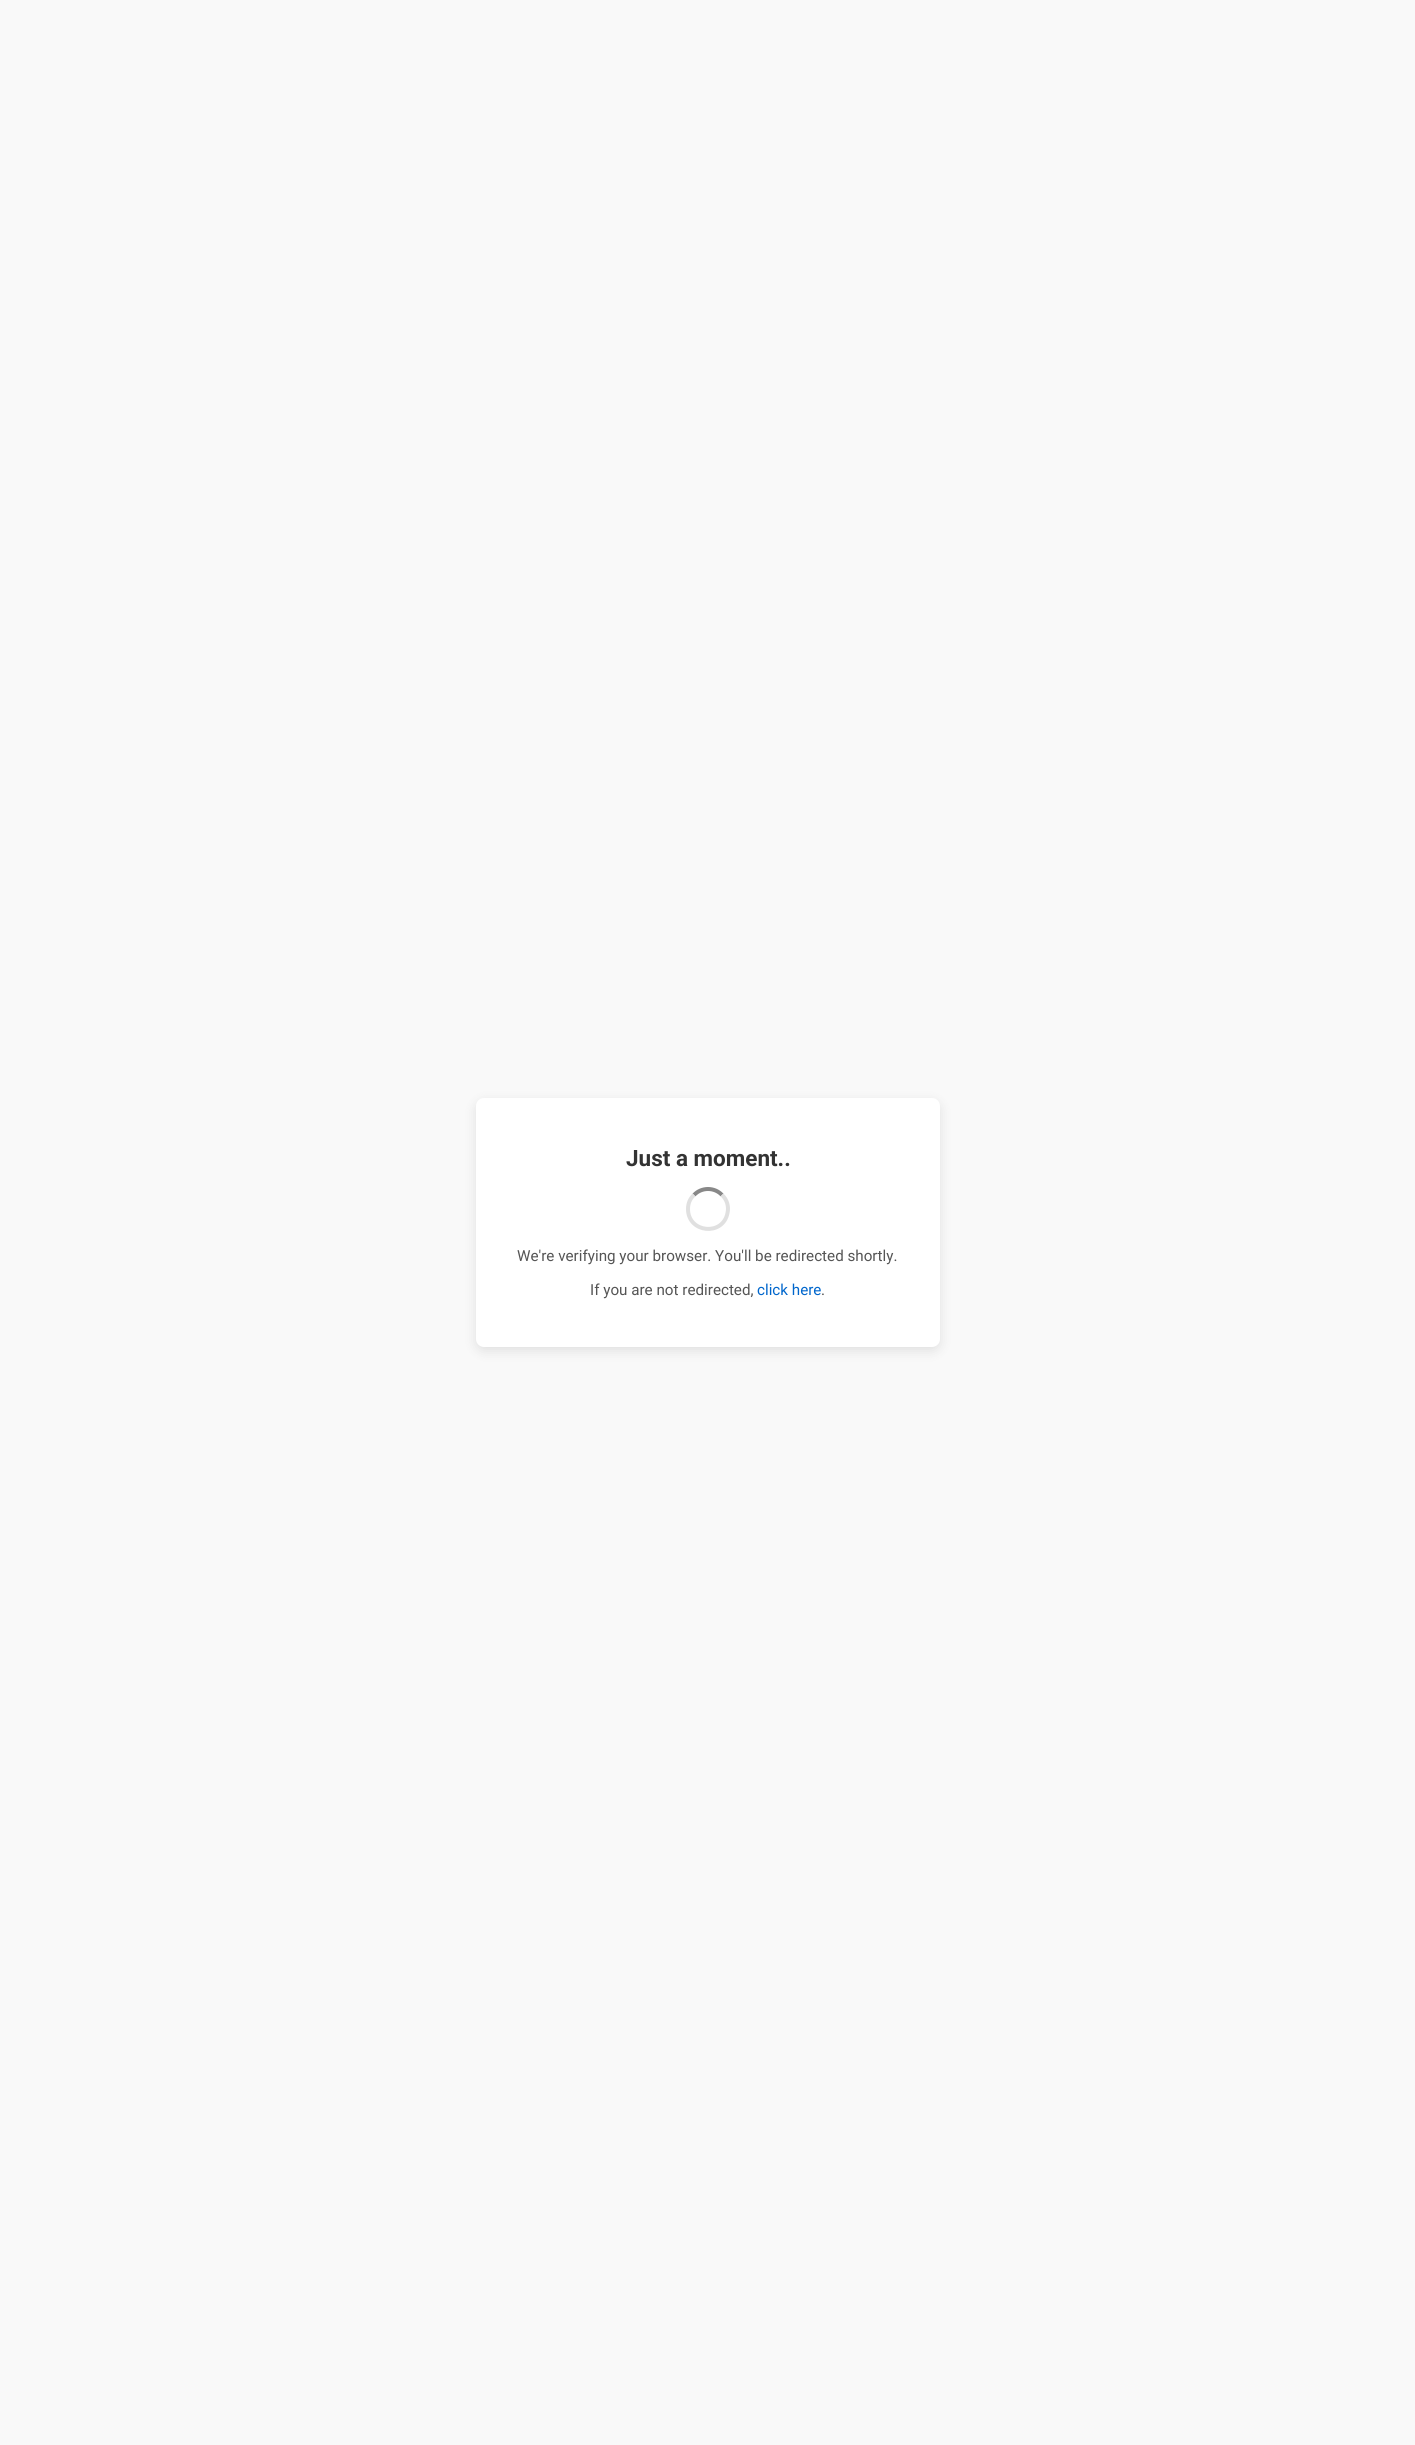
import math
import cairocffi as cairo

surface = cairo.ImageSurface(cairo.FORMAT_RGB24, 1415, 2445)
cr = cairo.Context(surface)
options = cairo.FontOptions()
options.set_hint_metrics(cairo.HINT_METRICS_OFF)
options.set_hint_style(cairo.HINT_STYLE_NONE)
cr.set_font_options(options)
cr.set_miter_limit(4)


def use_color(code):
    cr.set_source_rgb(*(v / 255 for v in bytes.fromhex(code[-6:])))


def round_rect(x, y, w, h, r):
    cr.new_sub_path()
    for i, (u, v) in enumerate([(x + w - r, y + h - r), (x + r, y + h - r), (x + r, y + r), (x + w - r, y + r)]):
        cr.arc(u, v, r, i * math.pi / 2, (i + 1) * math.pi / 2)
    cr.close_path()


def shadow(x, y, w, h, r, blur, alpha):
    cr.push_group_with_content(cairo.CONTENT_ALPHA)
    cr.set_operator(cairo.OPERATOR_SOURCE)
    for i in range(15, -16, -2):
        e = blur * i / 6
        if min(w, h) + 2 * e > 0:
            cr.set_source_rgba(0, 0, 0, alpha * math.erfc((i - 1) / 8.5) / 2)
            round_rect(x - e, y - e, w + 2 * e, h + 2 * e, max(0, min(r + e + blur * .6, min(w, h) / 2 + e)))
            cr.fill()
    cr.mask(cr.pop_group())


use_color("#f9f9f9")
cr.paint()
use_color("#000000")
shadow(476, 1102, 464, 249, 8, 6, 0.1)
use_color("#ffffff")
round_rect(476, 1098, 464, 249, 8)
cr.fill()
cr.select_font_face("Roboto", cairo.FONT_SLANT_NORMAL, cairo.FONT_WEIGHT_BOLD)
cr.set_font_size(22.5)
use_color("#333333")
cr.move_to(626, 1166)
cr.show_text("Just a moment..")
cr.new_path()
cr.move_to(694, 1195)
cr.curve_to(701.5, 1187, 714.5, 1187, 722, 1195)
use_color("#888888")
cr.set_line_width(4)
cr.stroke()
cr.new_path()
cr.move_to(722, 1195)
cr.curve_to(727, 1199.5, 729, 1206.5, 727.5, 1213)
cr.curve_to(723, 1236.5, 688, 1233, 688, 1209)
cr.curve_to(688, 1203.5, 690, 1198.5, 694, 1195)
use_color("#e0e0e0")
cr.stroke()
cr.select_font_face("Roboto")
cr.set_font_size(15.2)
use_color("#555555")
cr.move_to(517, 1261)
cr.show_text("We're verifying your browser. You'll be redirected shortly.")
cr.move_to(590, 1295)
cr.show_text("If you are not redirected,")
use_color("#0066cc")
cr.move_to(757, 1295)
cr.show_text("click here")
use_color("#555555")
cr.move_to(821, 1295)
cr.show_text(".")
surface.write_to_png("result.png")
